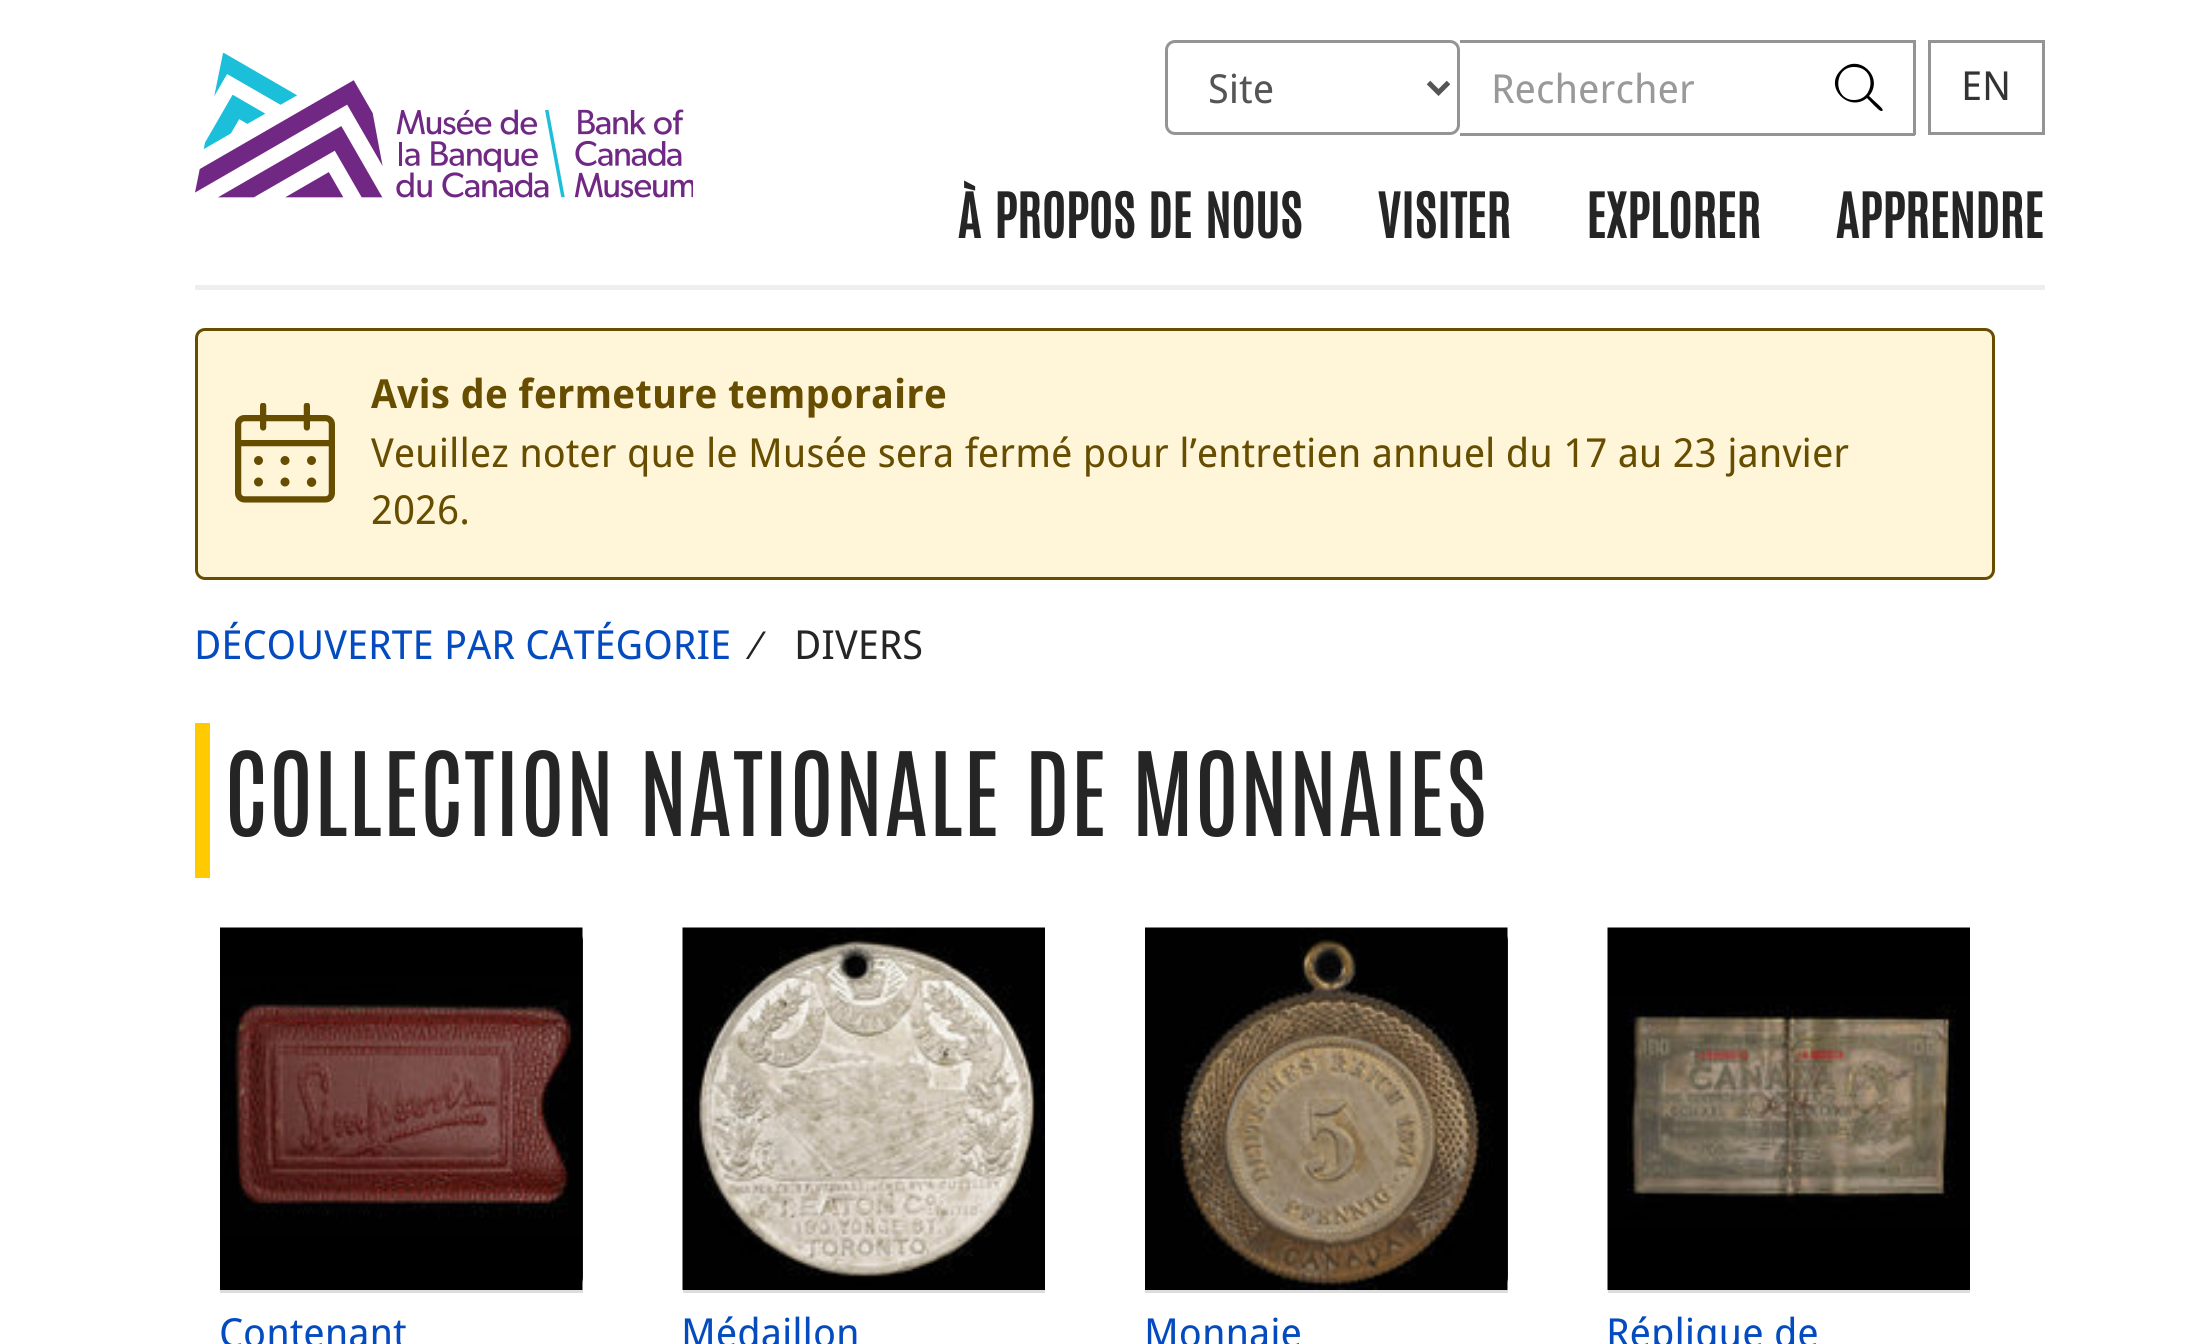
import math
import cairocffi as cairo

surface = cairo.ImageSurface(cairo.FORMAT_RGB24, 2186, 1344)
cr = cairo.Context(surface)
options = cairo.FontOptions()
options.set_hint_metrics(cairo.HINT_METRICS_OFF)
options.set_hint_style(cairo.HINT_STYLE_NONE)
cr.set_font_options(options)
cr.set_miter_limit(4)


def use_color(code):
    cr.set_source_rgb(*(v / 255 for v in bytes.fromhex(code[-6:])))


def round_rect(x, y, w, h, r):
    cr.new_sub_path()
    for i, (u, v) in enumerate([(x + w - r, y + h - r), (x + r, y + h - r), (x + r, y + r), (x + w - r, y + r)]):
        cr.arc(u, v, r, i * math.pi / 2, (i + 1) * math.pi / 2)
    cr.close_path()


def picture(path, x, y, w, h):
    cr.save()
    cr.set_source_surface(cairo.ImageSurface.create_from_png(path), x, y)
    cr.rectangle(x, y, w, h)
    cr.fill()
    cr.restore()


use_color("#ffffff")
cr.paint()
use_color("#eeeeee")
cr.rectangle(195, 285, 1850, 5)
cr.fill()
picture("img1.png", 195, 53, 498, 145)
round_rect(1166.5, 41.5, 292, 92, 8.5)
use_color("#949494")
cr.set_line_width(3)
cr.stroke()
cr.new_path()
cr.move_to(1428.5, 82.5)
cr.line_to(1438.5, 92.5)
cr.line_to(1448.5, 82.5)
use_color("#555555")
cr.set_line_width(5)
cr.stroke()
cr.select_font_face("Droid Sans")
cr.set_font_size(40)
cr.move_to(1208, 103)
cr.show_text("Site")
use_color("#949494")
cr.rectangle(1460, 40, 455, 3)
cr.fill()
cr.rectangle(1460, 133, 345, 3)
cr.fill()
use_color("#999999")
cr.move_to(1491, 103)
cr.show_text("Rechercher")
use_color("#949494")
cr.rectangle(1913, 40, 3, 95)
cr.fill()
cr.rectangle(1805, 133, 110, 3)
cr.fill()
use_color("#000000")
cr.new_path()
cr.move_to(1881, 111)
cr.curve_to(1879, 111, 1869, 100, 1867, 98)
cr.curve_to(1849, 113, 1823, 87, 1841, 70)
cr.curve_to(1858, 52, 1885, 77, 1869, 96)
cr.curve_to(1876, 103, 1887, 111, 1881, 111)
cr.close_path()
cr.move_to(1854, 67)
cr.curve_to(1833, 67, 1833, 100, 1854, 100)
cr.curve_to(1875, 100, 1877, 67, 1854, 67)
cr.close_path()
cr.fill()
cr.rectangle(1929.5, 41.5, 114, 92)
use_color("#949494")
cr.set_line_width(3)
cr.stroke()
use_color("#333333")
cr.move_to(1961, 100)
cr.show_text("EN")
cr.select_font_face("Antonio", cairo.FONT_SLANT_NORMAL, cairo.FONT_WEIGHT_BOLD)
cr.set_font_size(52.5)
use_color("#262525")
cr.move_to(957, 238)
cr.show_text("À PROPOS DE NOUS")
cr.move_to(1377, 238)
cr.show_text("VISITER")
cr.move_to(1586, 238)
cr.show_text("EXPLORER")
cr.move_to(1835, 238)
cr.show_text("APPRENDRE")
use_color("#fff5d9")
round_rect(196.5, 329.5, 1797, 249, 8.5)
cr.fill_preserve()
use_color("#664d00")
cr.stroke()
picture("img2.png", 235, 403, 100, 100)
cr.select_font_face("Droid Sans", cairo.FONT_SLANT_NORMAL, cairo.FONT_WEIGHT_BOLD)
cr.set_font_size(40)
cr.move_to(371, 408)
cr.show_text("Avis de fermeture temporaire")
cr.select_font_face("Droid Sans")
cr.move_to(371, 467)
cr.show_text("Veuillez noter que le Musée sera fermé pour l’entretien annuel du 17 au 23 janvier")
cr.move_to(371, 524)
cr.show_text("2026.")
use_color("#034bbf")
cr.move_to(194, 659)
cr.show_text("DÉCOUVERTE PAR CATÉGORIE")
cr.select_font_face("Liberation Sans")
use_color("#262525")
cr.move_to(754, 659)
cr.show_text("∕")
cr.select_font_face("Droid Sans")
cr.move_to(794, 659)
cr.show_text("DIVERS")
use_color("#ffcb00")
cr.rectangle(195, 723, 15, 155)
cr.fill()
cr.select_font_face("Antonio")
cr.set_font_size(98.75)
use_color("#262525")
cr.move_to(224, 836)
cr.show_text("COLLECTION NATIONALE DE MONNAIES")
round_rect(220, 928, 363, 362, 13)
cr.fill()
picture("img3.png", 220, 927, 363, 363)
use_color("#dddddd")
cr.rectangle(220, 1290, 363, 3)
cr.fill()
cr.select_font_face("Droid Sans")
cr.set_font_size(40)
use_color("#034bbf")
cr.move_to(219, 1347)
cr.show_text("Contenant")
picture("img4.png", 682, 927, 363, 363)
use_color("#dddddd")
cr.rectangle(683, 1290, 362, 3)
cr.fill()
use_color("#034bbf")
cr.move_to(681, 1347)
cr.show_text("Médaillon")
use_color("#262525")
round_rect(1145, 928, 363, 362, 13)
cr.fill()
picture("img5.png", 1145, 927, 363, 363)
use_color("#dddddd")
cr.rectangle(1145, 1290, 363, 3)
cr.fill()
use_color("#034bbf")
cr.move_to(1144, 1347)
cr.show_text("Monnaie")
picture("img6.png", 1607, 927, 363, 363)
use_color("#dddddd")
cr.rectangle(1608, 1290, 362, 3)
cr.fill()
use_color("#034bbf")
cr.move_to(1606, 1347)
cr.show_text("Réplique de")
surface.write_to_png("result.png")
